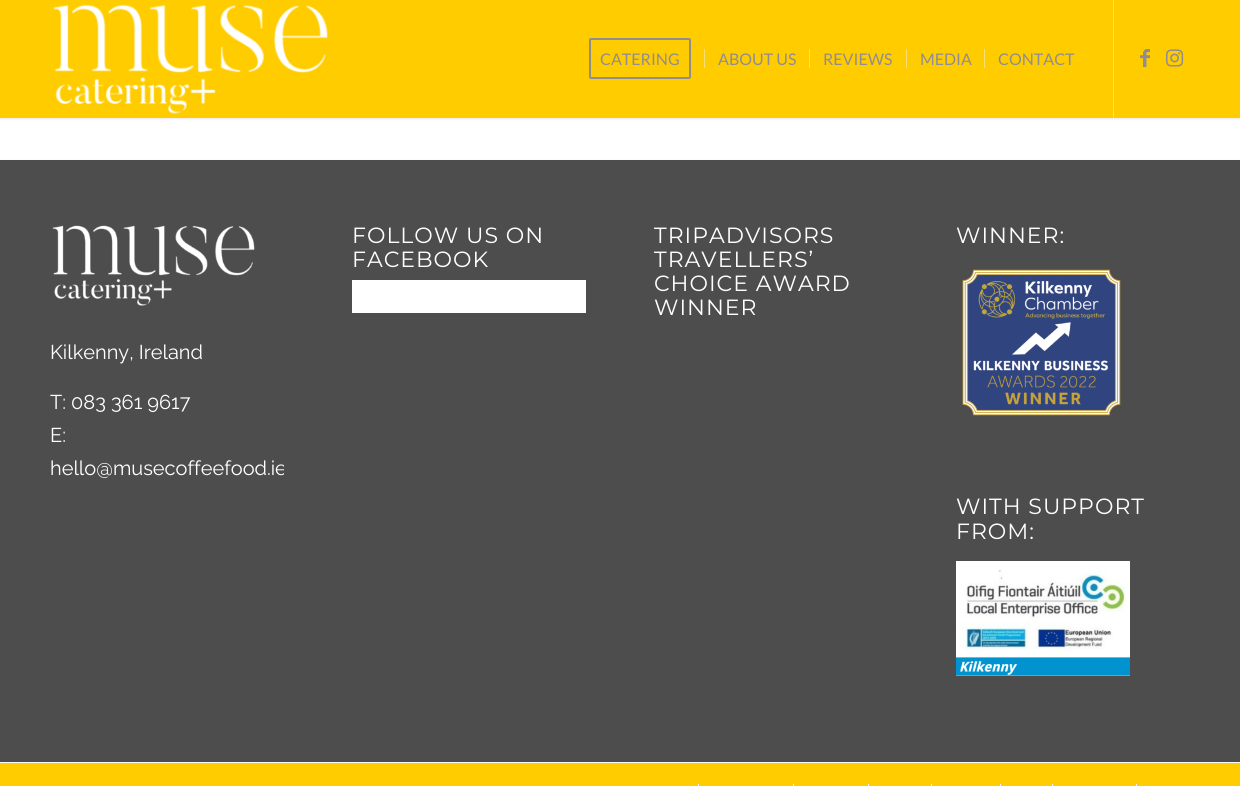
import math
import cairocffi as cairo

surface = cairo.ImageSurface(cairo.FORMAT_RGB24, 1240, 786)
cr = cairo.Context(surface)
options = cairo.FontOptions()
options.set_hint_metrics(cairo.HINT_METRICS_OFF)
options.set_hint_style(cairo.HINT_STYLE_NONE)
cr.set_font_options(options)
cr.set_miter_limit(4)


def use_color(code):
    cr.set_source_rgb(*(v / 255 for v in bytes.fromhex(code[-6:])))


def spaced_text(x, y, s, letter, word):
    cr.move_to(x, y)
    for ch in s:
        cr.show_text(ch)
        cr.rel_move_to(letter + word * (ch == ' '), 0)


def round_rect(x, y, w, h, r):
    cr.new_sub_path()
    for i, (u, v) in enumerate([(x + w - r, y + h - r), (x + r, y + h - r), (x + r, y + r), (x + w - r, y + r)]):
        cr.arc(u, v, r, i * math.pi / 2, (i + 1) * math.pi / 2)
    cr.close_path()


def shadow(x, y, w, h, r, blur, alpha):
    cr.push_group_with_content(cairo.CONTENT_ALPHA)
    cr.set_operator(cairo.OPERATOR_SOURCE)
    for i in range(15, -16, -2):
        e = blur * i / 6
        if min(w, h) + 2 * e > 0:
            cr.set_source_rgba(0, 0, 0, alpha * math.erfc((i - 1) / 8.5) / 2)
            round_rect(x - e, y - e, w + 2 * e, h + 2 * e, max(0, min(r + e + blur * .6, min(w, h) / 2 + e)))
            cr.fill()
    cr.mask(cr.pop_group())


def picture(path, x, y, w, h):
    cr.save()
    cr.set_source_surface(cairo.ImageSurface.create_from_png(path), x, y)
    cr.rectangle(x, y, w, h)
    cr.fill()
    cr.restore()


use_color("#ffffff")
cr.paint()
use_color("#000000")
shadow(-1, -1, 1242, 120, 0, 1, 0.1)
use_color("#ffcc00")
cr.rectangle(0, 0, 1240, 118)
cr.fill()
picture("img1.png", 53, 4, 276, 110)
use_color("#f7de7b")
cr.rectangle(1113, 0, 1, 118)
cr.fill()
round_rect(590, 39, 100, 39, 1)
use_color("#918c91")
cr.stroke()
cr.select_font_face("Lato")
cr.set_font_size(16)
cr.move_to(600, 65)
cr.show_text("CATERING")
cr.move_to(718, 65)
cr.show_text("ABOUT US")
use_color("#f7de7b")
cr.rectangle(704, 49, 1, 19)
cr.fill()
use_color("#918c91")
cr.move_to(823, 65)
cr.show_text("REVIEWS")
use_color("#f7de7b")
cr.rectangle(809, 49, 1, 19)
cr.fill()
use_color("#918c91")
cr.move_to(920, 65)
cr.show_text("MEDIA")
use_color("#f7de7b")
cr.rectangle(906, 49, 1, 19)
cr.fill()
use_color("#918c91")
cr.move_to(998, 65)
cr.show_text("CONTACT")
use_color("#f7de7b")
cr.rectangle(984, 49, 1, 19)
cr.fill()
picture("img2.png", 1140, 49, 10, 18)
picture("img3.png", 1166, 49, 18, 18)
use_color("#4d4d4d")
cr.rectangle(0, 160, 1240, 602)
cr.fill()
use_color("#fcfcfc")
cr.rectangle(0, 159, 1240, 1)
cr.fill()
picture("img4.png", 52, 225, 203, 81)
cr.select_font_face("Raleway Thin")
cr.set_font_size(20)
use_color("#ffffff")
cr.move_to(50, 359)
cr.show_text("Kilkenny, Ireland")
cr.move_to(50, 409)
cr.show_text("T: 083 361 9617")
cr.move_to(50, 442)
cr.show_text("E:")
cr.save()
cr.rectangle(50, 205, 234, 347)
cr.clip()
cr.move_to(50, 475)
cr.show_text("hello@musecoffeefood.ie")
cr.restore()
cr.select_font_face("Montserrat Thin")
cr.set_font_size(22)
spaced_text(352, 243, "FOLLOW US ON", 1, 0)
spaced_text(352, 267, "FACEBOOK", 1, 0)
cr.rectangle(352, 280, 234, 33)
cr.fill()
spaced_text(654, 243, "TRIPADVISORS", 1, 0)
spaced_text(654, 267, "TRAVELLERS’", 1, 0)
spaced_text(654, 291, "CHOICE AWARD", 1, 0)
spaced_text(654, 315, "WINNER", 1, 0)
spaced_text(956, 243, "WINNER:", 1, 0)
picture("img5.png", 962, 269, 159, 147)
spaced_text(956, 514, "WITH SUPPORT", 1, 0)
spaced_text(956, 539, "FROM:", 1, 0)
picture("img6.png", 956, 561, 174, 115)
use_color("#ffcc00")
cr.rectangle(0, 763, 1240, 23)
cr.fill()
use_color("#f8f8f8")
cr.rectangle(0, 762, 1240, 1)
cr.fill()
cr.rectangle(698, 784, 1, 2)
cr.fill()
cr.rectangle(793, 784, 1, 2)
cr.fill()
cr.rectangle(868, 784, 1, 2)
cr.fill()
cr.rectangle(931, 784, 1, 2)
cr.fill()
cr.rectangle(1000, 784, 1, 2)
cr.fill()
cr.rectangle(1052, 784, 1, 2)
cr.fill()
cr.rectangle(1136, 784, 1, 2)
cr.fill()
surface.write_to_png("result.png")
